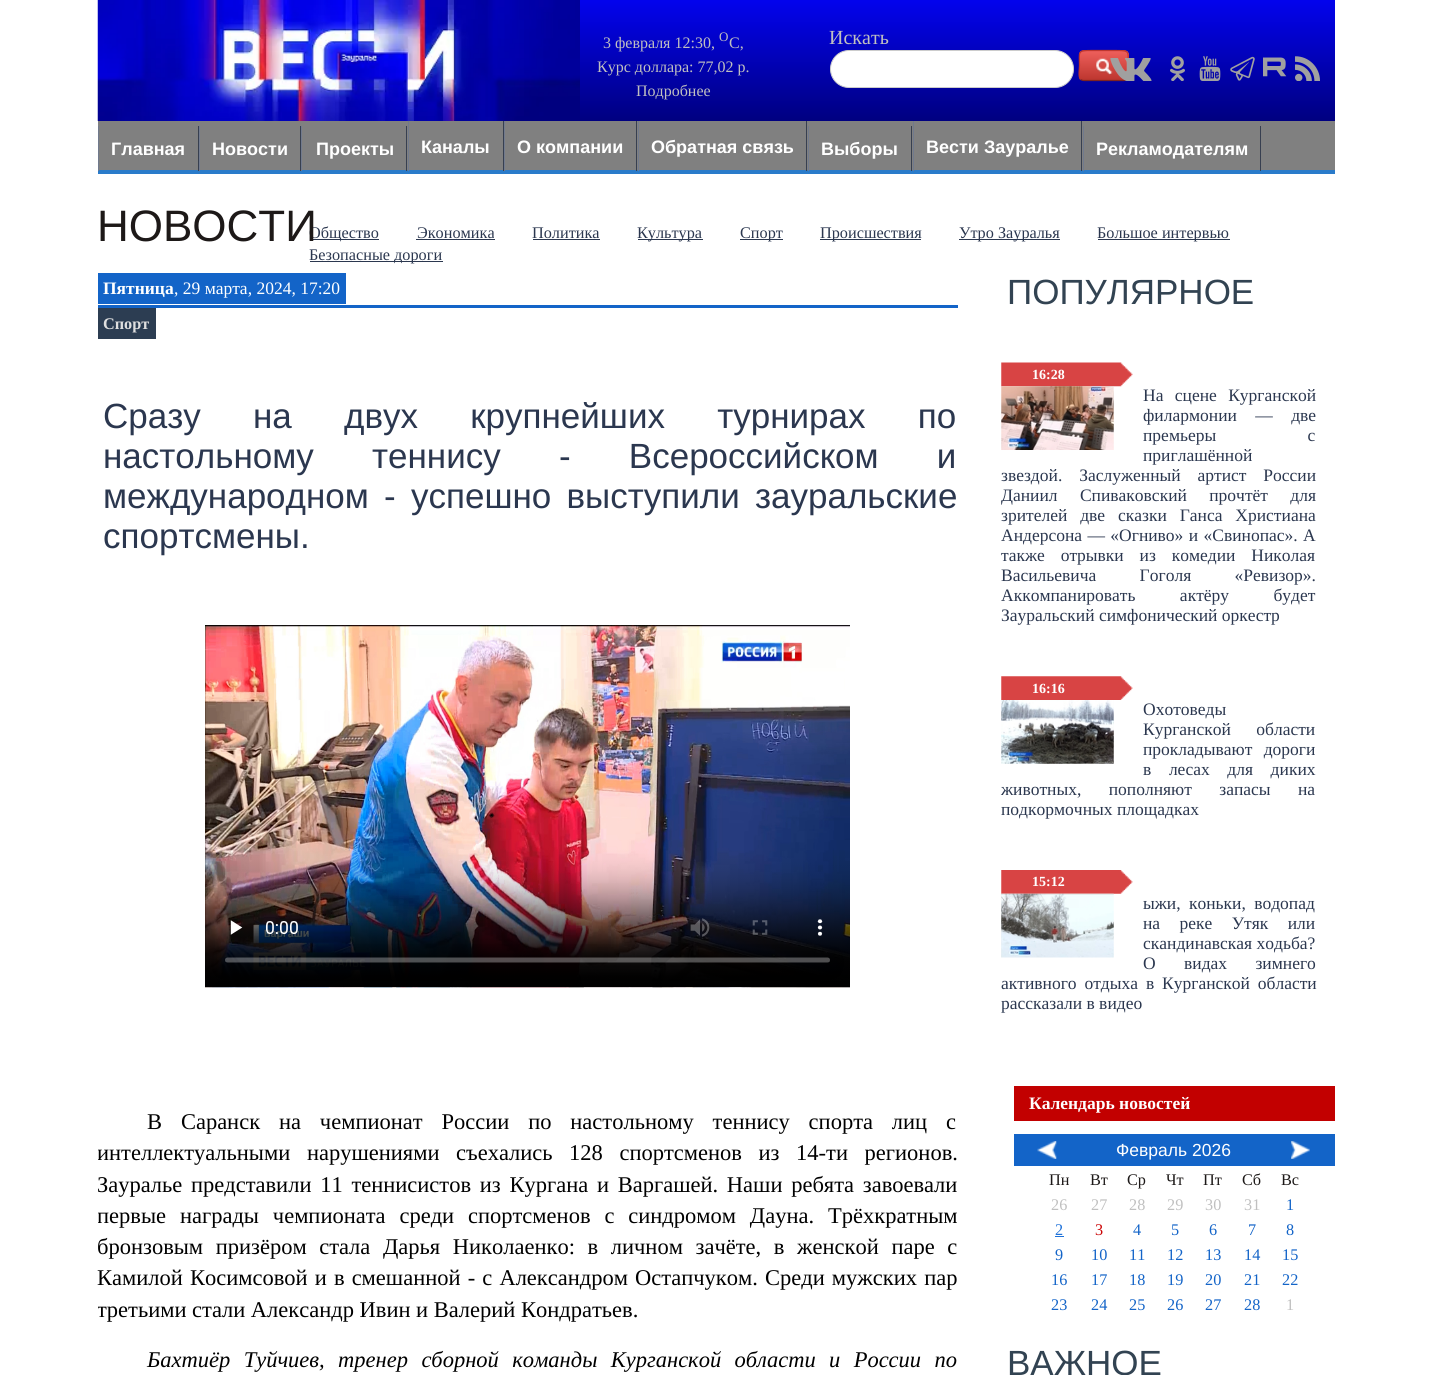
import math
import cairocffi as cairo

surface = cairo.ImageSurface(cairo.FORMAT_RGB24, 1431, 1375)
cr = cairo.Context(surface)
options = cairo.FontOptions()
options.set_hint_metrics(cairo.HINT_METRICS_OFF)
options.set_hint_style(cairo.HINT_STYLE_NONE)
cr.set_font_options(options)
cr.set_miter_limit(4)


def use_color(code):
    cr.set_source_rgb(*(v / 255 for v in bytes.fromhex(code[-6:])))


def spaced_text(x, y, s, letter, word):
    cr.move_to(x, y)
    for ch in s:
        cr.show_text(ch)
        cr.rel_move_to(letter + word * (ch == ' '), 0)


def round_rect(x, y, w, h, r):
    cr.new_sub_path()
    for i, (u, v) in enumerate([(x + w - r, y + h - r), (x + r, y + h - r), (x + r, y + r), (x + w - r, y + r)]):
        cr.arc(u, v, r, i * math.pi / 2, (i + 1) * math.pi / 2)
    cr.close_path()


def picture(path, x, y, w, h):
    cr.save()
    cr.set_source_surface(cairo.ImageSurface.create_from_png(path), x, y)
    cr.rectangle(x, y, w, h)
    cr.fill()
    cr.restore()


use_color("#ffffff")
cr.paint()
gradient = cairo.LinearGradient(716, 0, 716, 121)
gradient.add_color_stop_rgba(0, 0.012, 0.012, 0.929, 1)
gradient.add_color_stop_rgba(1, 0, 0, 0.502, 1)
cr.set_source(gradient)
cr.rectangle(580, 0, 755, 121)
cr.fill()
picture("img1.png", 97, 0, 483, 121)
cr.select_font_face("Liberation Serif")
cr.set_font_size(16)
use_color("#c0c0c0")
cr.move_to(603, 48)
cr.show_text("3 февраля 12:30,")
cr.set_font_size(13)
cr.move_to(719, 41)
cr.show_text("O")
cr.set_font_size(16)
cr.move_to(729, 48)
cr.show_text("C,")
cr.move_to(597, 72)
cr.show_text("Курс доллара: 77,02 р.")
cr.move_to(636, 96)
cr.show_text("Подробнее")
cr.set_font_size(20)
cr.move_to(829, 44)
cr.show_text("Искать")
use_color("#ffffff")
round_rect(830.5, 50.5, 243, 37, 18.5)
cr.fill_preserve()
use_color("#cccccc")
cr.set_line_width(1)
cr.stroke()
cr.save()
round_rect(1079, 50, 50, 31, 5)
cr.clip()
gradient = cairo.LinearGradient(1080, 23, 1080, 51)
gradient.add_color_stop_rgba(0, 0.933, 0.373, 0.357, 1)
gradient.add_color_stop_rgba(1, 0.741, 0.212, 0.184, 1)
cr.set_source(gradient)
cr.rectangle(1079, 50, 50, 1)
cr.fill()
gradient = cairo.LinearGradient(1080, 51, 1080, 80)
gradient.add_color_stop_rgba(0, 0.933, 0.373, 0.357, 1)
gradient.add_color_stop_rgba(1, 0.741, 0.212, 0.184, 1)
cr.set_source(gradient)
cr.rectangle(1079, 51, 50, 29)
cr.fill()
cr.restore()
cr.new_path()
cr.move_to(1127, 79.5)
cr.curve_to(1126, 80, 1125, 80.5, 1124, 80.5)
cr.line_to(1084, 80.5)
cr.curve_to(1082.5, 80.5, 1081.5, 80, 1080.5, 79.5)
use_color("#802420")
cr.set_line_width(1.2)
cr.stroke()
cr.new_path()
cr.move_to(1080.5, 79.5)
cr.curve_to(1078, 76.5, 1079.5, 69, 1079.5, 65.5)
cr.curve_to(1079.5, 52, 1077, 50.5, 1090.5, 50.5)
cr.line_to(1117, 50.5)
cr.curve_to(1130.5, 50.5, 1128, 52, 1128, 65.5)
cr.curve_to(1128, 69, 1129.5, 76.5, 1127, 79.5)
use_color("#bd362f")
cr.stroke()
picture("img2.png", 1096, 58, 17, 17)
picture("img3.png", 1110, 58, 42, 23)
picture("img4.png", 1170, 56, 15, 25)
picture("img5.png", 1199, 56, 22, 25)
picture("img6.png", 1230, 56, 25, 25)
picture("img7.png", 1263, 57, 24, 20)
picture("img8.png", 1295, 56, 25, 25)
use_color("#808080")
cr.rectangle(98, 121, 1237, 49)
cr.fill()
use_color("#2a7bca")
cr.rectangle(98, 170, 1237, 4)
cr.fill()
use_color("#373f50")
cr.rectangle(198, 126, 1, 45)
cr.fill()
use_color("#717a8d")
cr.rectangle(98, 126, 1, 45)
cr.fill()
cr.select_font_face("Liberation Sans", cairo.FONT_SLANT_NORMAL, cairo.FONT_WEIGHT_BOLD)
cr.set_font_size(18)
use_color("#ffffff")
cr.move_to(111, 155)
cr.show_text("Главная")
use_color("#373f50")
cr.rectangle(300, 126, 1, 45)
cr.fill()
use_color("#717a8d")
cr.rectangle(199, 126, 1, 45)
cr.fill()
use_color("#ffffff")
cr.move_to(212, 155)
cr.show_text("Новости")
use_color("#373f50")
cr.rectangle(406, 126, 1, 45)
cr.fill()
use_color("#717a8d")
cr.rectangle(301, 126, 1, 45)
cr.fill()
use_color("#ffffff")
cr.move_to(316, 155)
cr.show_text("Проекты")
use_color("#373f50")
cr.rectangle(503, 121, 1, 50)
cr.fill()
use_color("#717a8d")
cr.rectangle(408, 121, 1, 50)
cr.fill()
use_color("#ffffff")
cr.move_to(421, 153)
cr.show_text("Каналы")
use_color("#373f50")
cr.rectangle(636, 121, 1, 50)
cr.fill()
use_color("#717a8d")
cr.rectangle(504, 121, 1, 50)
cr.fill()
use_color("#ffffff")
cr.move_to(517, 153)
cr.show_text("О компании")
use_color("#373f50")
cr.rectangle(806, 121, 1, 50)
cr.fill()
use_color("#717a8d")
cr.rectangle(638, 121, 1, 50)
cr.fill()
use_color("#ffffff")
cr.move_to(651, 153)
cr.show_text("Обратная связь")
use_color("#373f50")
cr.rectangle(911, 126, 1, 45)
cr.fill()
use_color("#717a8d")
cr.rectangle(808, 126, 1, 45)
cr.fill()
use_color("#ffffff")
cr.move_to(821, 155)
cr.show_text("Выборы")
use_color("#373f50")
cr.rectangle(1081, 121, 1, 50)
cr.fill()
use_color("#717a8d")
cr.rectangle(913, 121, 1, 50)
cr.fill()
use_color("#ffffff")
cr.move_to(926, 153)
cr.show_text("Вести Зауралье")
use_color("#373f50")
cr.rectangle(1260, 126, 1, 45)
cr.fill()
use_color("#717a8d")
cr.rectangle(1083, 126, 1, 45)
cr.fill()
use_color("#ffffff")
cr.move_to(1096, 155)
cr.show_text("Рекламодателям")
use_color("#2b374f")
cr.rectangle(310, 239, 69, 1)
cr.fill()
cr.select_font_face("Liberation Serif")
cr.set_font_size(16.25)
cr.move_to(309, 238)
cr.show_text("Общество")
cr.select_font_face("Liberation Sans")
cr.set_font_size(44)
use_color("#1d1918")
cr.move_to(97, 241)
cr.show_text("НОВОСТИ")
cr.select_font_face("Liberation Serif")
cr.set_font_size(16.25)
use_color("#2b374f")
cr.move_to(417, 238)
cr.show_text("Экономика")
cr.rectangle(416, 239, 79, 1)
cr.fill()
cr.move_to(532, 238)
cr.show_text("Политика")
cr.rectangle(533, 239, 67, 1)
cr.fill()
cr.rectangle(638, 239, 65, 1)
cr.fill()
cr.move_to(637, 238)
cr.show_text("Культура")
cr.rectangle(740, 239, 43, 1)
cr.fill()
cr.move_to(740, 238)
cr.show_text("Спорт")
cr.rectangle(820, 239, 101, 1)
cr.fill()
cr.move_to(820, 238)
cr.show_text("Происшествия")
cr.rectangle(959, 239, 101, 1)
cr.fill()
cr.move_to(959, 238)
cr.show_text("Утро Зауралья")
cr.rectangle(1098, 239, 132, 1)
cr.fill()
cr.move_to(1097, 238)
cr.show_text("Большое интервью")
cr.rectangle(310, 261, 133, 1)
cr.fill()
cr.move_to(309, 260)
cr.show_text("Безопасные дороги")
use_color("#1364c8")
cr.rectangle(98, 273, 248, 31)
cr.fill()
cr.select_font_face("Liberation Serif", cairo.FONT_SLANT_NORMAL, cairo.FONT_WEIGHT_BOLD)
cr.set_font_size(17.5)
use_color("#ffffff")
cr.move_to(103, 294)
cr.show_text("Пятница")
cr.select_font_face("Liberation Serif")
cr.move_to(174, 294)
cr.show_text(", 29 марта, 2024, 17:20")
use_color("#1364c8")
cr.rectangle(98, 305, 860, 3)
cr.fill()
use_color("#2c3d52")
cr.rectangle(98, 308, 58, 31)
cr.fill()
cr.select_font_face("Liberation Serif", cairo.FONT_SLANT_NORMAL, cairo.FONT_WEIGHT_BOLD)
cr.set_font_size(16.25)
use_color("#dfdfdf")
cr.move_to(103, 329)
cr.show_text("Спорт")
cr.select_font_face("Liberation Sans")
cr.set_font_size(35)
use_color("#2b374f")
spaced_text(103, 428, "Сразу на двух крупнейших турнирах по", 0, 42.5)
spaced_text(103, 468, "настольному теннису - Всероссийском и", 0, 48.5)
spaced_text(103, 508, "международном - успешно выступили зауральские", 0, 5.5)
cr.move_to(103, 548)
cr.show_text("спортсмены.")
picture("img9.png", 205, 625, 645, 363)
cr.select_font_face("Liberation Serif")
cr.set_font_size(22.5)
use_color("#000000")
spaced_text(147, 1129, "В Саранск на чемпионат России по настольному теннису спорта лиц с", 0, 13.25)
cr.save()
cr.rectangle(98, 0, 1237, 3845)
cr.clip()
spaced_text(97, 1160, "интеллектуальными нарушениями съехались 128 спортсменов из 14-ти регионов.", 0, 11)
cr.restore()
spaced_text(97, 1192, "Зауралье представили 11 теннисистов из Кургана и Варгашей. Наши ребята завоевали", 0, 3.1)
cr.save()
cr.rectangle(98, 0, 1237, 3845)
cr.clip()
spaced_text(97, 1223, "первые награды чемпионата среди спортсменов с синдромом Дауна. Трёхкратным", 0, 8.25)
cr.restore()
spaced_text(97, 1254, "бронзовым призёром стала Дарья Николаенко: в личном зачёте, в женской паре с", 0, 7)
spaced_text(97, 1285, "Камилой Косимсовой и в смешанной - с Александром Остапчуком. Среди мужских пар", 0, 1.5)
cr.save()
cr.rectangle(98, 0, 1237, 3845)
cr.clip()
cr.move_to(97, 1317)
cr.show_text("третьими стали Александр Ивин и Валерий Кондратьев.")
cr.restore()
cr.select_font_face("Liberation Serif", cairo.FONT_SLANT_ITALIC)
spaced_text(147, 1367, "Бахтиёр Туйчиев, тренер сборной команды Курганской области и России по", 0, 7.75)
cr.select_font_face("Liberation Sans")
cr.set_font_size(35)
use_color("#324352")
cr.move_to(1007, 304)
cr.show_text("ПОПУЛЯРНОЕ")
picture("img10.png", 1001, 362, 132, 25)
cr.select_font_face("Liberation Serif", cairo.FONT_SLANT_NORMAL, cairo.FONT_WEIGHT_BOLD)
cr.set_font_size(14)
use_color("#ffffff")
cr.move_to(1032, 379)
cr.show_text("16:28")
picture("img11.png", 1001, 386, 113, 64)
cr.select_font_face("Liberation Serif")
cr.set_font_size(17.5)
use_color("#2b374f")
spaced_text(1143, 401, "На сцене Курганской", 0, 7)
spaced_text(1143, 421, "филармонии — две", 0, 14)
spaced_text(1143, 441, "премьеры с", 0, 87)
cr.move_to(1143, 461)
cr.show_text("приглашённой")
spaced_text(1001, 481, "звездой. Заслуженный артист России", 0, 12.5)
spaced_text(1001, 501, "Даниил Спиваковский прочтёт для", 0, 18)
spaced_text(1001, 521, "зрителей две сказки Ганса Христиана", 0, 8.5)
spaced_text(1001, 541, "Андерсона — «Огниво» и «Свинопас». А", 0, 1)
spaced_text(1001, 561, "также отрывки из комедии Николая", 0, 11.5)
spaced_text(1001, 581, "Васильевича Гоголя «Ревизор».", 0, 39)
spaced_text(1001, 601, "Аккомпанировать актёру будет", 0, 40)
cr.move_to(1001, 621)
cr.show_text("Зауральский симфонический оркестр")
picture("img12.png", 1001, 676, 132, 24)
cr.select_font_face("Liberation Serif", cairo.FONT_SLANT_NORMAL, cairo.FONT_WEIGHT_BOLD)
cr.set_font_size(14)
use_color("#ffffff")
cr.move_to(1032, 693)
cr.show_text("16:16")
picture("img13.png", 1001, 700, 113, 64)
cr.select_font_face("Liberation Serif")
cr.set_font_size(17.5)
use_color("#2b374f")
cr.move_to(1143, 715)
cr.show_text("Охотоведы")
spaced_text(1143, 735, "Курганской области", 0, 21)
spaced_text(1143, 755, "прокладывают дороги", 0, 7)
spaced_text(1143, 775, "в лесах для диких", 0, 13.25)
spaced_text(1001, 795, "животных, пополняют запасы на", 0, 23)
cr.move_to(1001, 815)
cr.show_text("подкормочных площадках")
picture("img14.png", 1001, 870, 132, 24)
cr.select_font_face("Liberation Serif", cairo.FONT_SLANT_NORMAL, cairo.FONT_WEIGHT_BOLD)
cr.set_font_size(14)
use_color("#ffffff")
cr.move_to(1032, 886)
cr.show_text("15:12")
picture("img15.png", 1001, 893, 113, 65)
cr.select_font_face("Liberation Serif")
cr.set_font_size(17.5)
use_color("#2b374f")
spaced_text(1143, 909, "ыжи, коньки, водопад", 0, 4)
spaced_text(1143, 929, "на реке Утяк или", 0, 15)
cr.move_to(1143, 949)
cr.show_text("скандинавская ходьба?")
spaced_text(1143, 969, "О видах зимнего", 0, 24)
spaced_text(1001, 989, "активного отдыха в Курганской области", 0, 3.5)
cr.move_to(1001, 1009)
cr.show_text("рассказали в видео")
use_color("#c20000")
cr.rectangle(1014, 1086, 321, 35)
cr.fill()
cr.select_font_face("Liberation Serif", cairo.FONT_SLANT_NORMAL, cairo.FONT_WEIGHT_BOLD)
use_color("#ffffff")
cr.move_to(1029, 1109)
cr.show_text("Календарь новостей")
use_color("#1364c8")
cr.rectangle(1014, 1134, 321, 32)
cr.fill()
picture("img16.png", 1037, 1141, 20, 18)
cr.select_font_face("Liberation Sans")
use_color("#ffffff")
cr.move_to(1116, 1156)
cr.show_text("Февраль 2026")
picture("img17.png", 1291, 1141, 19, 18)
cr.select_font_face("Liberation Serif")
cr.set_font_size(16.25)
use_color("#1d1918")
cr.move_to(1049, 1185)
cr.show_text("Пн")
cr.move_to(1090, 1185)
cr.show_text("Вт")
cr.move_to(1127, 1185)
cr.show_text("Ср")
cr.move_to(1166, 1185)
cr.show_text("Чт")
cr.move_to(1203, 1185)
cr.show_text("Пт")
cr.move_to(1242, 1185)
cr.show_text("Сб")
cr.move_to(1281, 1185)
cr.show_text("Вс")
use_color("#c0c0c0")
cr.move_to(1051, 1210)
cr.show_text("26")
cr.move_to(1091, 1210)
cr.show_text("27")
cr.move_to(1129, 1210)
cr.show_text("28")
cr.move_to(1167, 1210)
cr.show_text("29")
cr.move_to(1205, 1210)
cr.show_text("30")
cr.move_to(1244, 1210)
cr.show_text("31")
use_color("#1364c8")
cr.move_to(1286, 1210)
cr.show_text("1")
use_color("#1f72d9")
cr.move_to(1055, 1235)
cr.show_text("2")
cr.rectangle(1055, 1236, 9, 1)
cr.fill()
use_color("#cb0506")
cr.move_to(1095, 1235)
cr.show_text("3")
use_color("#1364c8")
cr.move_to(1133, 1235)
cr.show_text("4")
cr.move_to(1171, 1235)
cr.show_text("5")
cr.move_to(1209, 1235)
cr.show_text("6")
cr.move_to(1248, 1235)
cr.show_text("7")
cr.move_to(1286, 1235)
cr.show_text("8")
cr.move_to(1055, 1260)
cr.show_text("9")
cr.move_to(1091, 1260)
cr.show_text("10")
cr.move_to(1129, 1260)
cr.show_text("11")
cr.move_to(1167, 1260)
cr.show_text("12")
cr.move_to(1205, 1260)
cr.show_text("13")
cr.move_to(1244, 1260)
cr.show_text("14")
cr.move_to(1282, 1260)
cr.show_text("15")
cr.move_to(1051, 1285)
cr.show_text("16")
cr.move_to(1091, 1285)
cr.show_text("17")
cr.move_to(1129, 1285)
cr.show_text("18")
cr.move_to(1167, 1285)
cr.show_text("19")
cr.move_to(1205, 1285)
cr.show_text("20")
cr.move_to(1244, 1285)
cr.show_text("21")
cr.move_to(1282, 1285)
cr.show_text("22")
cr.move_to(1051, 1310)
cr.show_text("23")
cr.move_to(1091, 1310)
cr.show_text("24")
cr.move_to(1129, 1310)
cr.show_text("25")
cr.move_to(1167, 1310)
cr.show_text("26")
cr.move_to(1205, 1310)
cr.show_text("27")
cr.move_to(1244, 1310)
cr.show_text("28")
use_color("#c0c0c0")
cr.move_to(1286, 1310)
cr.show_text("1")
cr.select_font_face("Liberation Sans")
cr.set_font_size(35)
use_color("#324352")
cr.move_to(1007, 1375)
cr.show_text("ВАЖНОЕ")
surface.write_to_png("result.png")
